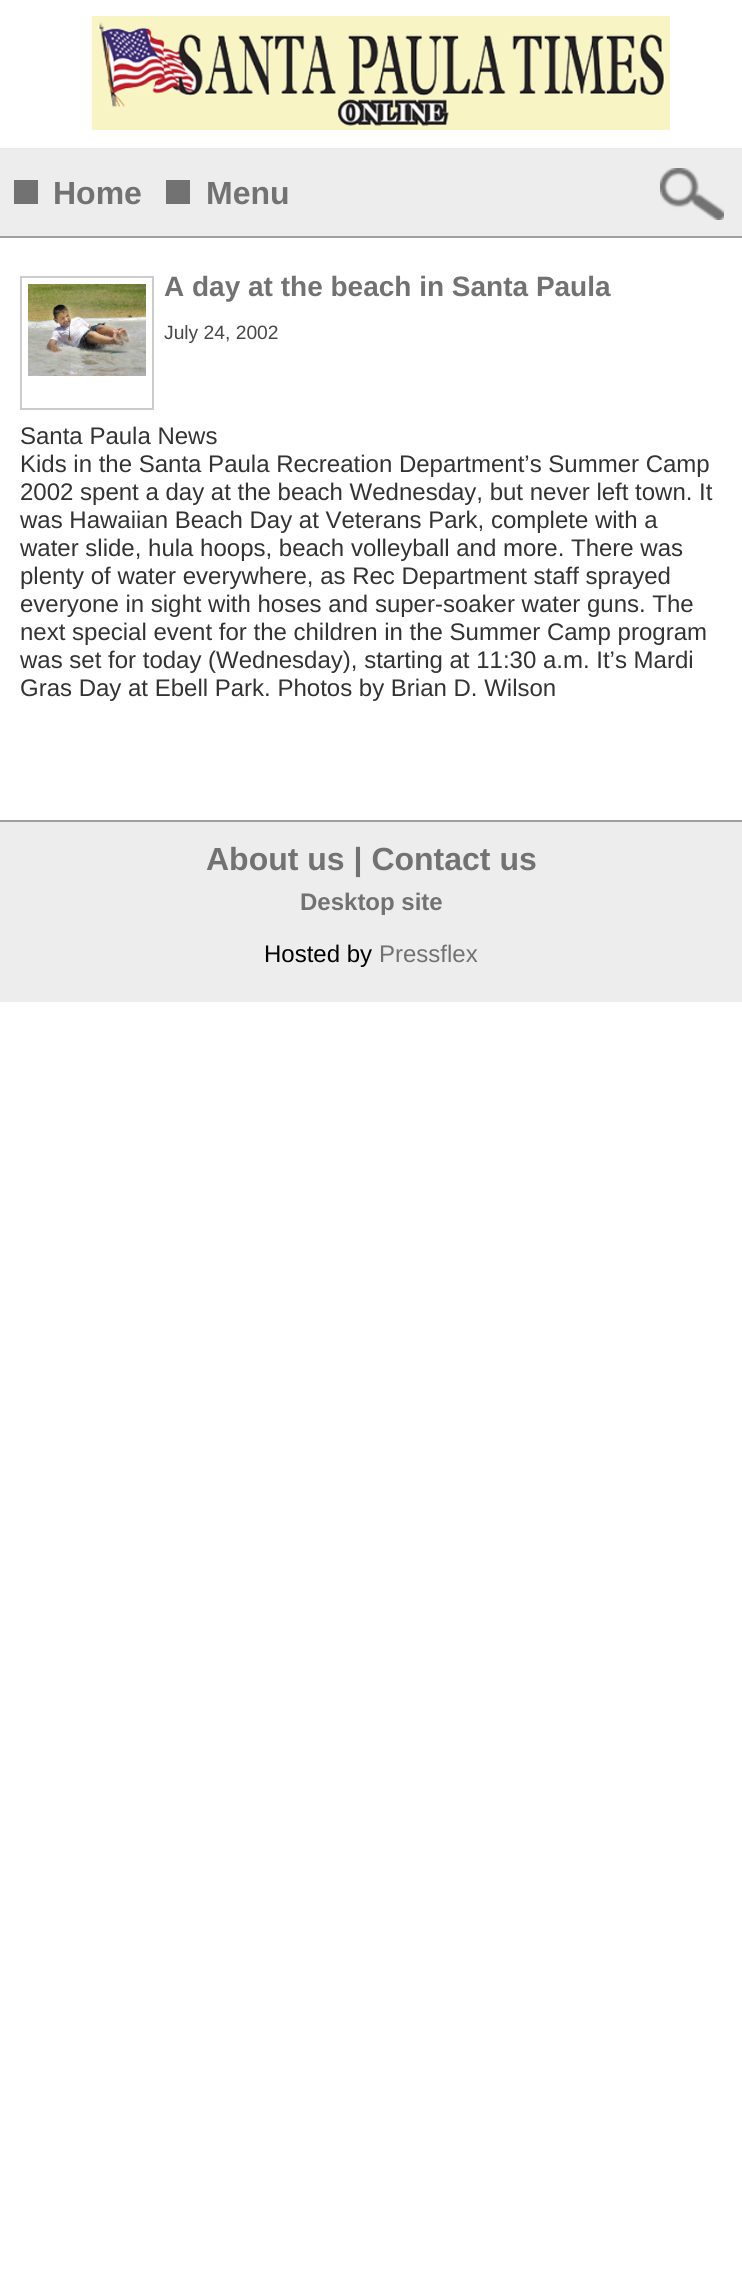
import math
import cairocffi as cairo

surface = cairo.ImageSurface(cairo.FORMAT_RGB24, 742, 2291)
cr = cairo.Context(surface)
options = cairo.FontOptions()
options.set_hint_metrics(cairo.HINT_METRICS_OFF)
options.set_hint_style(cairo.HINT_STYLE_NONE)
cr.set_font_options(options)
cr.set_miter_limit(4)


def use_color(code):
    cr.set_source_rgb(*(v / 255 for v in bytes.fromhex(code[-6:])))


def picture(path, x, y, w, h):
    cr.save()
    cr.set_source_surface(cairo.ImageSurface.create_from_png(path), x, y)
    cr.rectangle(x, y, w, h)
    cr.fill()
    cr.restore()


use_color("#ffffff")
cr.paint()
picture("img1.png", 92, 16, 578, 114)
use_color("#ededed")
cr.rectangle(0, 148, 742, 88)
cr.fill()
use_color("#9f9f9f")
cr.rectangle(0, 236, 742, 2)
cr.fill()
use_color("#727272")
cr.rectangle(14, 180, 24, 24)
cr.fill()
cr.select_font_face("Liberation Sans", cairo.FONT_SLANT_NORMAL, cairo.FONT_WEIGHT_BOLD)
cr.set_font_size(32)
cr.move_to(53, 204)
cr.show_text("Home")
cr.rectangle(166, 180, 24, 24)
cr.fill()
cr.move_to(206, 204)
cr.show_text("Menu")
picture("img2.png", 660, 168, 64, 52)
cr.rectangle(21, 277, 132, 132)
use_color("#cccccc")
cr.stroke()
picture("img3.png", 28, 284, 118, 92)
cr.set_font_size(28)
use_color("#727272")
cr.move_to(164, 296)
cr.show_text("A day at the beach in Santa Paula")
cr.select_font_face("Liberation Sans")
cr.set_font_size(19.25)
use_color("#474747")
cr.move_to(164, 339)
cr.show_text("July 24, 2002")
cr.set_font_size(24)
use_color("#333333")
cr.move_to(20, 444)
cr.show_text("Santa Paula News")
cr.move_to(20, 472)
cr.show_text("Kids in the Santa Paula Recreation Department’s Summer Camp")
cr.move_to(20, 500)
cr.show_text("2002 spent a day at the beach Wednesday, but never left town. It")
cr.move_to(20, 528)
cr.show_text("was Hawaiian Beach Day at Veterans Park, complete with a")
cr.move_to(20, 556)
cr.show_text("water slide, hula hoops, beach volleyball and more. There was")
cr.move_to(20, 584)
cr.show_text("plenty of water everywhere, as Rec Department staff sprayed")
cr.move_to(20, 612)
cr.show_text("everyone in sight with hoses and super-soaker water guns. The")
cr.move_to(20, 640)
cr.show_text("next special event for the children in the Summer Camp program")
cr.move_to(20, 668)
cr.show_text("was set for today (Wednesday), starting at 11:30 a.m. It’s Mardi")
cr.move_to(20, 696)
cr.show_text("Gras Day at Ebell Park. Photos by Brian D. Wilson")
use_color("#ededed")
cr.rectangle(0, 822, 742, 180)
cr.fill()
use_color("#9f9f9f")
cr.rectangle(0, 820, 742, 2)
cr.fill()
cr.select_font_face("Liberation Sans", cairo.FONT_SLANT_NORMAL, cairo.FONT_WEIGHT_BOLD)
cr.set_font_size(32)
use_color("#727272")
cr.move_to(206, 870)
cr.show_text("About us | Contact us")
cr.set_font_size(24)
cr.move_to(300, 910)
cr.show_text("Desktop site")
cr.select_font_face("Liberation Sans")
use_color("#000000")
cr.move_to(264, 962)
cr.show_text("Hosted by")
use_color("#727272")
cr.move_to(379, 962)
cr.show_text("Pressflex")
surface.write_to_png("result.png")
